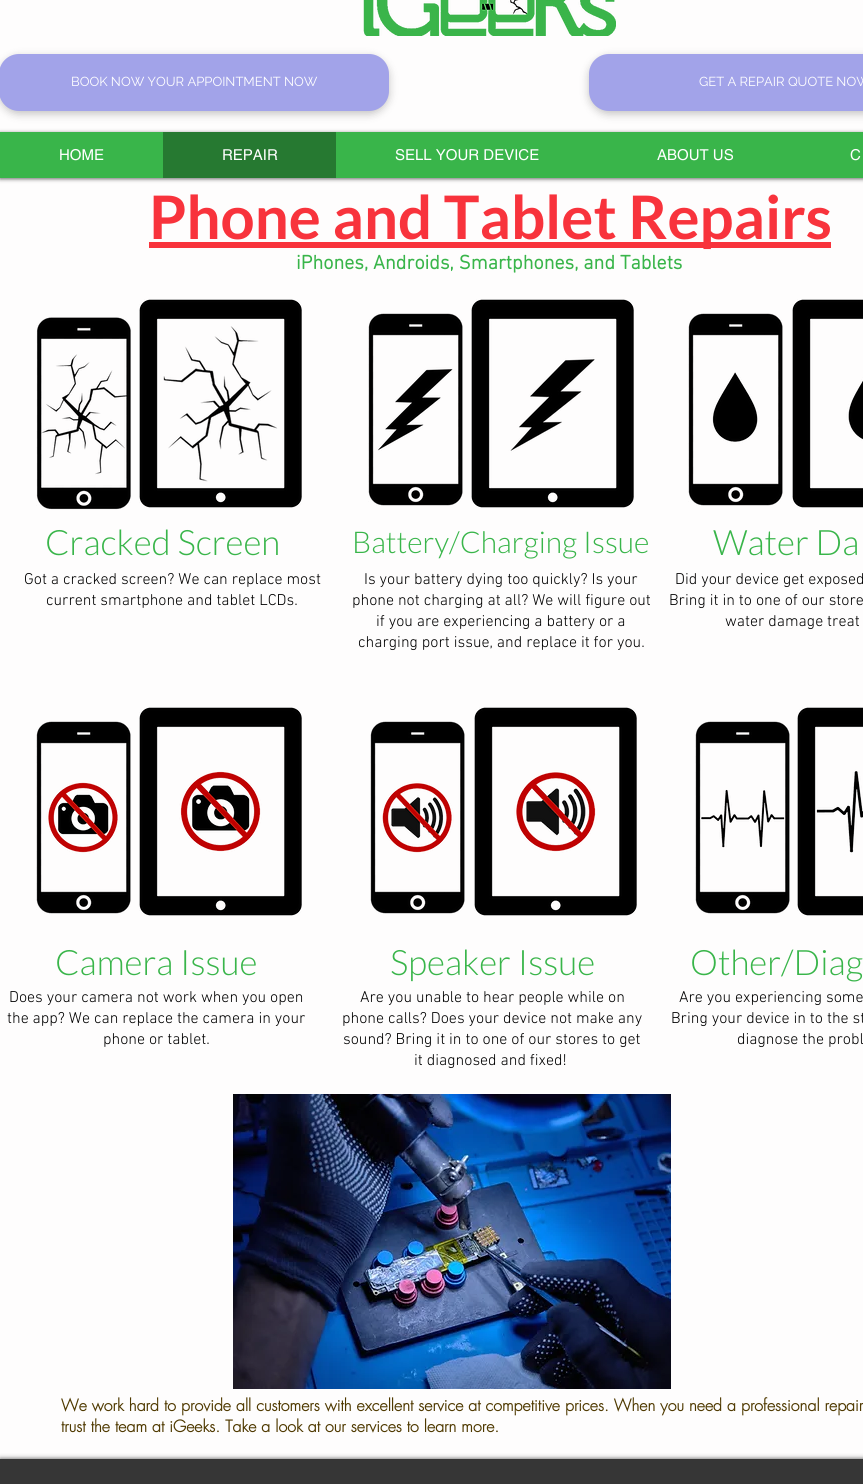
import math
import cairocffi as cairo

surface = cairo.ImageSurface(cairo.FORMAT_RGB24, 863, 1484)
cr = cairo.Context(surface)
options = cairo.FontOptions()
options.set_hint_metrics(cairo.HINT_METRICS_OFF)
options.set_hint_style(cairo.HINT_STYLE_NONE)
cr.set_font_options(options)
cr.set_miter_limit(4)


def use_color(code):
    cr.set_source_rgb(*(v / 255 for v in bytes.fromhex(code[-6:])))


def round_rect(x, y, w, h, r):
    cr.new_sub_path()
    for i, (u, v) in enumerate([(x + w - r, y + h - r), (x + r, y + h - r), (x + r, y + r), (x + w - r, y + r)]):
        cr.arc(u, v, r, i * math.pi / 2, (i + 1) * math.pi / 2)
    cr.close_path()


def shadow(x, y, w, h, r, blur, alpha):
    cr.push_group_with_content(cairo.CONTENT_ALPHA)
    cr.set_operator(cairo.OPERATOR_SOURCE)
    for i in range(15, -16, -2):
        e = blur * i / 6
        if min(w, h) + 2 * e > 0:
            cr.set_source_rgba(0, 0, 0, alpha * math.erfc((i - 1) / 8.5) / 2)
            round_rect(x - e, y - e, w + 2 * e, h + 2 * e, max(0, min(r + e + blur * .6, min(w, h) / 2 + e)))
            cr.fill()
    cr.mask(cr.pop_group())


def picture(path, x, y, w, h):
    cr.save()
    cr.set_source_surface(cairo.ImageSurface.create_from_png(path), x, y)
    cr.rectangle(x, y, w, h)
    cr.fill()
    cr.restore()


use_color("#fefdfd")
cr.paint()
picture("img1.png", 363, 0, 253, 36)
use_color("#000000")
shadow(-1, 57, 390, 57, 20, 4.5, 0.23)
use_color("#a2a3e9")
round_rect(-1, 54, 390, 57, 20)
cr.fill()
cr.select_font_face("Raleway")
cr.set_font_size(13)
use_color("#ffffff")
cr.move_to(71, 86)
cr.show_text("BOOK NOW YOUR APPOINTMENT NOW")
use_color("#000000")
shadow(589, 57, 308, 57, 20, 4.5, 0.23)
use_color("#a2a3e9")
round_rect(589, 54, 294, 57, 20)
cr.fill()
use_color("#ffffff")
cr.move_to(699, 86)
cr.show_text("GET A REPAIR QUOTE NOW")
use_color("#000000")
shadow(0, 133, 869, 46, 0, 2, 0.6)
use_color("#39b54a")
cr.rectangle(0, 132, 863, 46)
cr.fill()
cr.select_font_face("helvetica")
cr.set_font_size(15)
use_color("#ffffff")
cr.move_to(59, 160)
cr.show_text("HOME")
use_color("#267931")
cr.rectangle(163, 132, 173, 46)
cr.fill()
use_color("#ffffff")
cr.move_to(222, 160)
cr.show_text("REPAIR")
cr.move_to(395, 160)
cr.show_text("SELL YOUR DEVICE")
cr.move_to(657, 160)
cr.show_text("ABOUT US")
cr.move_to(850, 160)
cr.show_text("C")
use_color("#f8333c")
cr.rectangle(149, 242, 682, 6)
cr.fill()
cr.select_font_face("Lato", cairo.FONT_SLANT_NORMAL, cairo.FONT_WEIGHT_BOLD)
cr.set_font_size(60)
cr.move_to(149, 239)
cr.show_text("Phone and Tablet Repairs")
cr.select_font_face("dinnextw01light", cairo.FONT_SLANT_NORMAL, cairo.FONT_WEIGHT_BOLD)
cr.set_font_size(20)
use_color("#39b54a")
cr.move_to(296, 269)
cr.show_text("iPhones, Androids, Smartphones, and Tablets")
picture("img2.png", 36, 317, 95, 193)
picture("img3.png", 139, 299, 163, 209)
cr.select_font_face("Lato Light")
cr.set_font_size(35)
cr.move_to(45, 555)
cr.show_text("Cracked Screen")
cr.select_font_face("dinnextw01light Light")
cr.set_font_size(16)
use_color("#000000")
cr.move_to(24, 584)
cr.show_text("Got a cracked screen? We can replace most")
cr.move_to(46, 605)
cr.show_text("current smartphone and tablet LCDs.")
picture("img4.png", 368, 313, 95, 193)
picture("img5.png", 471, 299, 163, 209)
cr.select_font_face("Lato Light")
cr.set_font_size(30)
use_color("#39b54a")
cr.move_to(352, 553)
cr.show_text("Battery/Charging Issue")
cr.select_font_face("dinnextw01light Light")
cr.set_font_size(16)
use_color("#000000")
cr.move_to(364, 584)
cr.show_text("Is your battery dying too quickly? Is your")
cr.move_to(352, 605)
cr.show_text("phone not charging at all? We will figure out")
cr.move_to(376, 626)
cr.show_text("if you are experiencing a battery or a")
cr.move_to(358, 647)
cr.show_text("charging port issue, and replace it for you.")
picture("img6.png", 688, 313, 95, 193)
picture("img7.png", 792, 299, 71, 209)
cr.select_font_face("Lato Light")
cr.set_font_size(35)
use_color("#39b54a")
cr.move_to(713, 555)
cr.show_text("Water Da")
cr.select_font_face("dinnextw01light Light")
cr.set_font_size(16)
use_color("#000000")
cr.move_to(675, 584)
cr.show_text("Did your device get exposed")
cr.move_to(669, 605)
cr.show_text("Bring it in to one of our store")
cr.move_to(725, 626)
cr.show_text("water damage treat")
picture("img8.png", 36, 721, 95, 193)
picture("img9.png", 139, 707, 163, 209)
cr.select_font_face("Lato Light")
cr.set_font_size(35)
use_color("#39b54a")
cr.move_to(55, 975)
cr.show_text("Camera Issue")
cr.select_font_face("dinnextw01light Light")
cr.set_font_size(16)
use_color("#000000")
cr.move_to(9, 1002)
cr.show_text("Does your camera not work when you open")
cr.move_to(7, 1023)
cr.show_text("the app? We can replace the camera in your")
cr.move_to(103, 1044)
cr.show_text("phone or tablet.")
picture("img10.png", 370, 721, 95, 193)
picture("img11.png", 474, 707, 163, 209)
cr.select_font_face("Lato Light")
cr.set_font_size(35)
use_color("#39b54a")
cr.move_to(390, 975)
cr.show_text("Speaker Issue")
cr.select_font_face("dinnextw01light Light")
cr.set_font_size(16)
use_color("#000000")
cr.move_to(360, 1002)
cr.show_text("Are you unable to hear people while on")
cr.move_to(342, 1023)
cr.show_text("phone calls? Does your device not make any")
cr.move_to(343, 1044)
cr.show_text("sound? Bring it in to one of our stores to get")
cr.move_to(414, 1065)
cr.show_text("it diagnosed and fixed!")
picture("img12.png", 695, 721, 95, 193)
picture("img13.png", 797, 707, 66, 209)
cr.select_font_face("Lato Light")
cr.set_font_size(35)
use_color("#39b54a")
cr.move_to(690, 975)
cr.show_text("Other/Diag")
cr.select_font_face("dinnextw01light Light")
cr.set_font_size(16)
use_color("#000000")
cr.move_to(679, 1002)
cr.show_text("Are you experiencing some")
cr.move_to(671, 1023)
cr.show_text("Bring your device in to the st")
cr.move_to(737, 1044)
cr.show_text("diagnose the probl")
picture("img14.png", 233, 1094, 438, 295)
cr.select_font_face("futura", cairo.FONT_SLANT_NORMAL, cairo.FONT_WEIGHT_BOLD)
use_color("#4f3900")
cr.move_to(61, 1411)
cr.show_text("We work hard to provide all customers with excellent service at competitive prices. When you need a professional repair")
cr.move_to(61, 1432)
cr.show_text("trust the team at iGeeks. Take a look at our services to learn more.")
use_color("#000000")
shadow(0, 1459, 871, 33, 0, 2.5, 0.7)
use_color("#363636")
cr.rectangle(0, 1459, 863, 25)
cr.fill()
surface.write_to_png("result.png")
